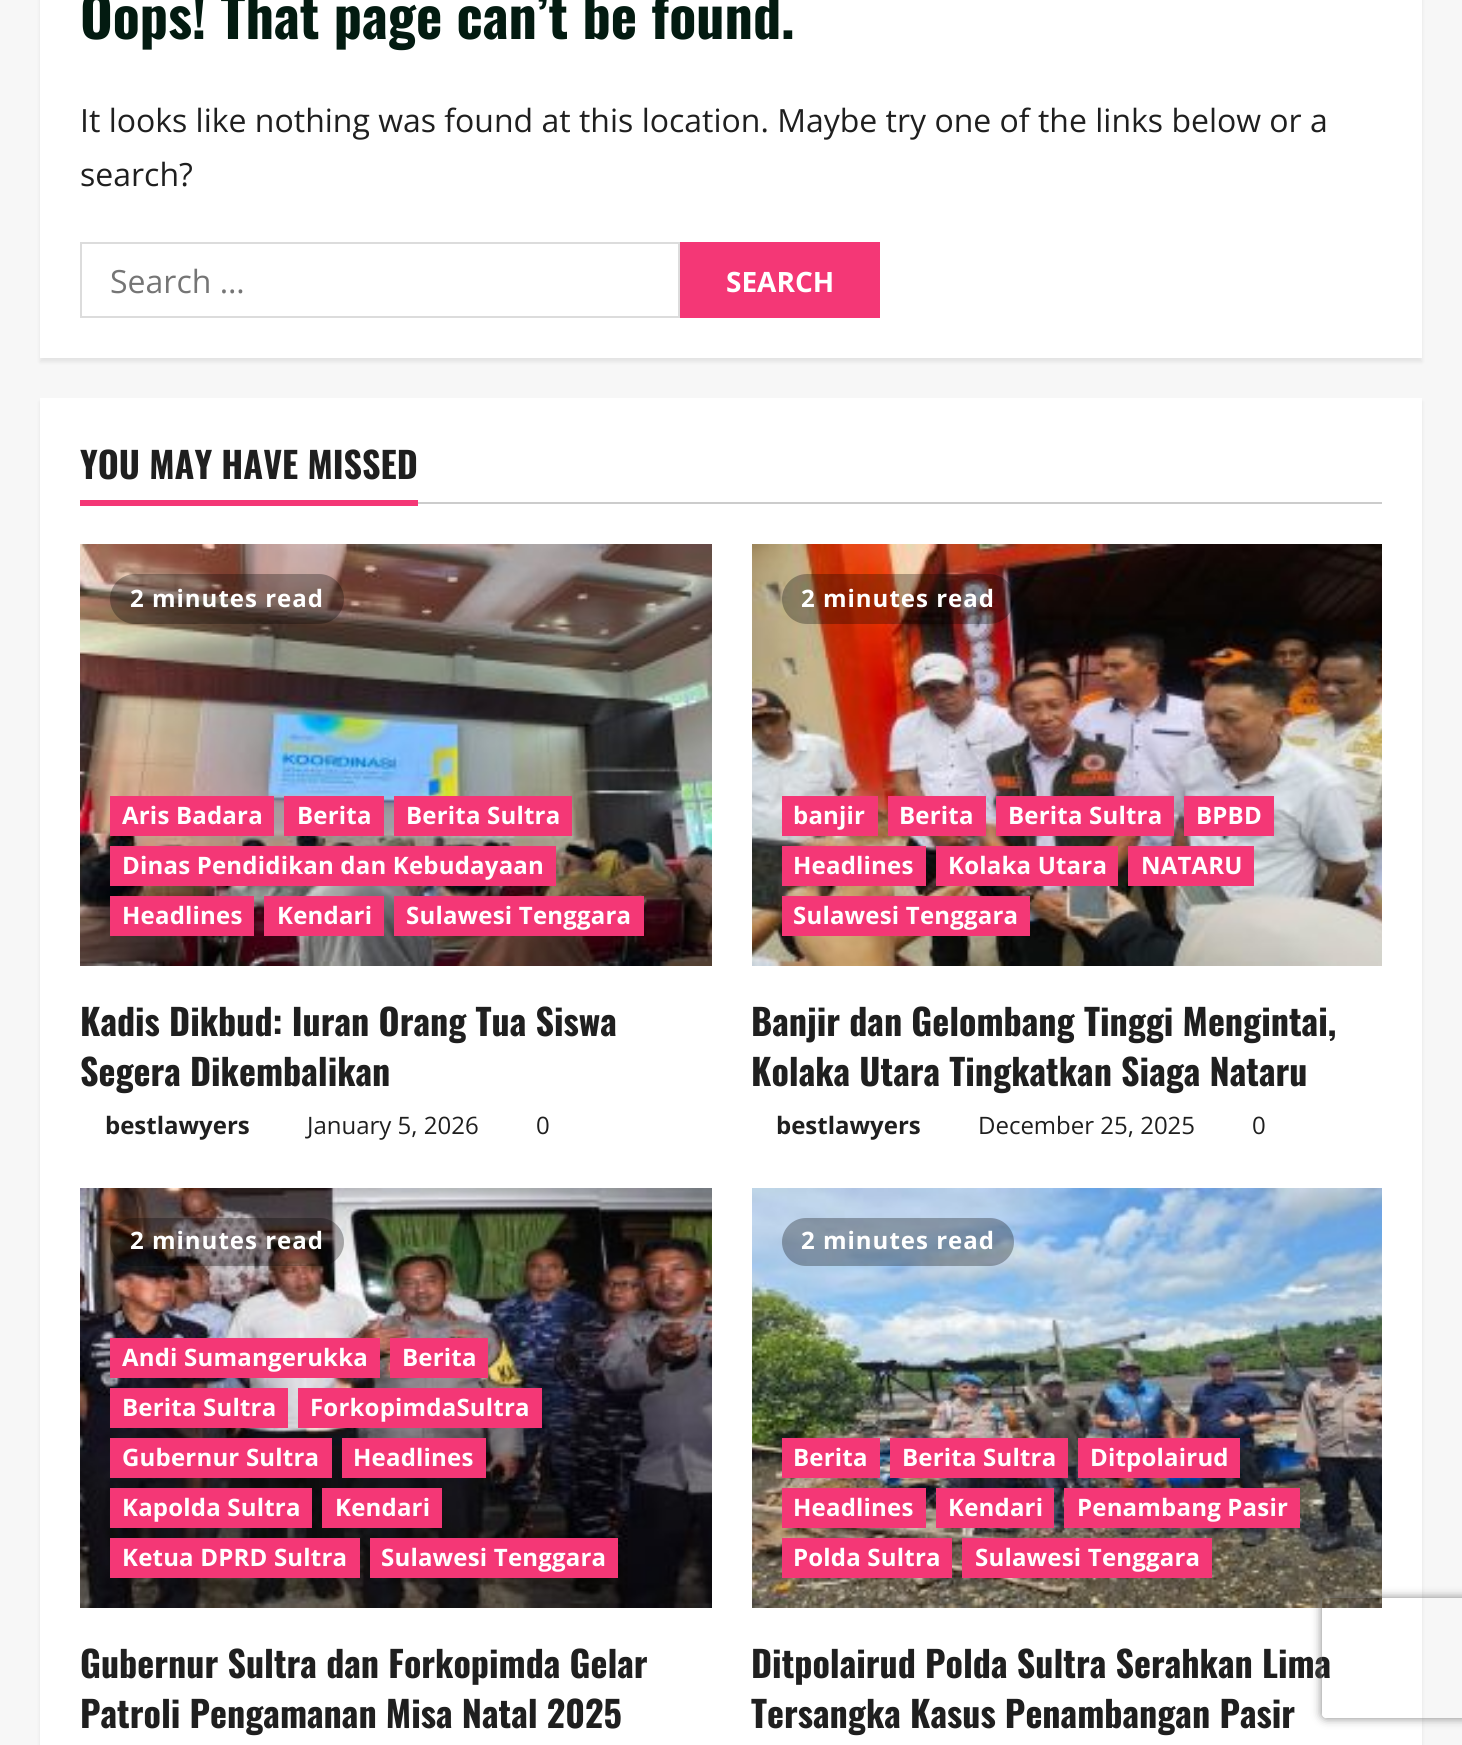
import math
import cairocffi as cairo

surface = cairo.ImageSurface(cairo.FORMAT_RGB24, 1462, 1745)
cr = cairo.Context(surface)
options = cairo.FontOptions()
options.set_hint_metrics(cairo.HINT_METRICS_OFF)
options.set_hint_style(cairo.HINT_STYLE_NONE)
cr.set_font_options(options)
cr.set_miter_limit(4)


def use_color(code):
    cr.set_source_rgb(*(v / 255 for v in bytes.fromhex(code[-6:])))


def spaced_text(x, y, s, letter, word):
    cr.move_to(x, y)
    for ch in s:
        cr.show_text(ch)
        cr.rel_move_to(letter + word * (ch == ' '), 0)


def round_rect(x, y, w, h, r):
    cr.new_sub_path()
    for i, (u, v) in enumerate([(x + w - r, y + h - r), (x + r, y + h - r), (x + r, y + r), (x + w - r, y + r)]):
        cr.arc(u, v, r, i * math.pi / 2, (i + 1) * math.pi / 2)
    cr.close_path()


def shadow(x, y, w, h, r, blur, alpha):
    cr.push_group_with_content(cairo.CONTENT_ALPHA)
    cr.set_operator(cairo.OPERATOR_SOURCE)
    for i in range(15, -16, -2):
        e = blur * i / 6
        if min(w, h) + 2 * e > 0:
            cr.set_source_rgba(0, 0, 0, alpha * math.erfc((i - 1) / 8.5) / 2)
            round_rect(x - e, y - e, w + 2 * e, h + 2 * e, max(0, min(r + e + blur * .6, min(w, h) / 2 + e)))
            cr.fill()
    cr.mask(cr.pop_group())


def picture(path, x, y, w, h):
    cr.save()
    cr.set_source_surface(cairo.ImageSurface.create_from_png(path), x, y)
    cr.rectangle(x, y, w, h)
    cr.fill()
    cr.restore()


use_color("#f7f7f7")
cr.paint()
use_color("#000000")
shadow(40, -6, 1382, 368, 0, 2, 0.08)
use_color("#ffffff")
cr.rectangle(40, 0, 1382, 358)
cr.fill()
cr.select_font_face("Oswald", cairo.FONT_SLANT_NORMAL, cairo.FONT_WEIGHT_BOLD)
cr.set_font_size(56)
use_color("#031b11")
cr.move_to(80, 39)
cr.show_text("Oops! That page can’t be found.")
cr.select_font_face("Open Sans")
cr.set_font_size(32)
use_color("#1f1f1f")
cr.move_to(80, 132)
cr.show_text("It looks like nothing was found at this location. Maybe try one of the links below or a")
cr.move_to(80, 186)
cr.show_text("search?")
cr.rectangle(81, 243, 598, 74)
use_color("#dcdcdc")
cr.stroke()
use_color("#757575")
cr.move_to(110, 293)
cr.show_text("Search …")
use_color("#f43776")
cr.rectangle(680, 242, 200, 76)
cr.fill()
cr.select_font_face("Open Sans", cairo.FONT_SLANT_NORMAL, cairo.FONT_WEIGHT_BOLD)
cr.set_font_size(28)
use_color("#ffffff")
cr.move_to(726, 292)
cr.show_text("SEARCH")
use_color("#000000")
shadow(40, 402, 1382, 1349, 0, 2, 0.08)
use_color("#ffffff")
cr.rectangle(40, 398, 1382, 1347)
cr.fill()
use_color("#cccccc")
cr.rectangle(418, 502, 964, 2)
cr.fill()
cr.select_font_face("Oswald", cairo.FONT_SLANT_NORMAL, cairo.FONT_WEIGHT_BOLD)
cr.set_font_size(36)
use_color("#1f1f1f")
cr.move_to(80, 479)
cr.show_text("YOU MAY HAVE MISSED")
use_color("#f43776")
cr.rectangle(80, 500, 338, 6)
cr.fill()
picture("img1.png", 80, 544, 632, 422)
cr.set_source_rgba(0, 0, 0, 0.3)
round_rect(110, 574, 234, 50, 25)
cr.fill()
cr.select_font_face("Open Sans", cairo.FONT_SLANT_NORMAL, cairo.FONT_WEIGHT_BOLD)
cr.set_font_size(24)
use_color("#ffffff")
spaced_text(130, 607, "2 minutes read", 1, 0)
use_color("#f43776")
cr.rectangle(110, 796, 164, 40)
cr.fill()
use_color("#ffffff")
spaced_text(122, 824, "Aris Badara", 0.2, 0)
use_color("#f43776")
cr.rectangle(284, 796, 100, 40)
cr.fill()
use_color("#ffffff")
spaced_text(297, 824, "Berita", 0.2, 0)
use_color("#f43776")
cr.rectangle(394, 796, 178, 40)
cr.fill()
use_color("#ffffff")
spaced_text(406, 824, "Berita Sultra", 0.2, 0)
use_color("#f43776")
cr.rectangle(110, 846, 446, 40)
cr.fill()
use_color("#ffffff")
spaced_text(122, 874, "Dinas Pendidikan dan Kebudayaan", 0.2, 0)
use_color("#f43776")
cr.rectangle(110, 896, 144, 40)
cr.fill()
use_color("#ffffff")
spaced_text(122, 924, "Headlines", 0.2, 0)
use_color("#f43776")
cr.rectangle(264, 896, 120, 40)
cr.fill()
use_color("#ffffff")
spaced_text(277, 924, "Kendari", 0.2, 0)
use_color("#f43776")
cr.rectangle(394, 896, 250, 40)
cr.fill()
use_color("#ffffff")
spaced_text(406, 924, "Sulawesi Tenggara", 0.2, 0)
cr.select_font_face("Oswald", cairo.FONT_SLANT_NORMAL, cairo.FONT_WEIGHT_BOLD)
cr.set_font_size(36)
use_color("#1f1f1f")
cr.move_to(80, 1036)
cr.show_text("Kadis Dikbud: Iuran Orang Tua Siswa")
cr.move_to(80, 1086)
cr.show_text("Segera Dikembalikan")
cr.select_font_face("Open Sans", cairo.FONT_SLANT_NORMAL, cairo.FONT_WEIGHT_BOLD)
cr.set_font_size(24)
cr.move_to(105, 1134)
cr.show_text("bestlawyers")
cr.select_font_face("Open Sans")
cr.move_to(307, 1134)
cr.show_text("January 5, 2026")
cr.move_to(536, 1134)
cr.show_text("0")
picture("img2.png", 752, 544, 630, 422)
cr.set_source_rgba(0, 0, 0, 0.3)
round_rect(782, 574, 232, 50, 25)
cr.fill()
cr.select_font_face("Open Sans", cairo.FONT_SLANT_NORMAL, cairo.FONT_WEIGHT_BOLD)
use_color("#ffffff")
spaced_text(801, 607, "2 minutes read", 1, 0)
use_color("#f43776")
cr.rectangle(782, 796, 96, 40)
cr.fill()
use_color("#ffffff")
spaced_text(793, 824, "banjir", 0.2, 0)
use_color("#f43776")
cr.rectangle(888, 796, 98, 40)
cr.fill()
use_color("#ffffff")
spaced_text(899, 824, "Berita", 0.2, 0)
use_color("#f43776")
cr.rectangle(996, 796, 178, 40)
cr.fill()
use_color("#ffffff")
spaced_text(1008, 824, "Berita Sultra", 0.2, 0)
use_color("#f43776")
cr.rectangle(1184, 796, 90, 40)
cr.fill()
use_color("#ffffff")
spaced_text(1196, 824, "BPBD", 0.2, 0)
use_color("#f43776")
cr.rectangle(782, 846, 144, 40)
cr.fill()
use_color("#ffffff")
spaced_text(793, 874, "Headlines", 0.2, 0)
use_color("#f43776")
cr.rectangle(936, 846, 182, 40)
cr.fill()
use_color("#ffffff")
spaced_text(948, 874, "Kolaka Utara", 0.2, 0)
use_color("#f43776")
cr.rectangle(1128, 846, 126, 40)
cr.fill()
use_color("#ffffff")
spaced_text(1141, 874, "NATARU", 0.2, 0)
use_color("#f43776")
cr.rectangle(782, 896, 248, 40)
cr.fill()
use_color("#ffffff")
spaced_text(793, 924, "Sulawesi Tenggara", 0.2, 0)
cr.select_font_face("Oswald", cairo.FONT_SLANT_NORMAL, cairo.FONT_WEIGHT_BOLD)
cr.set_font_size(36)
use_color("#1f1f1f")
cr.move_to(751, 1036)
cr.show_text("Banjir dan Gelombang Tinggi Mengintai,")
cr.move_to(751, 1086)
cr.show_text("Kolaka Utara Tingkatkan Siaga Nataru")
cr.select_font_face("Open Sans", cairo.FONT_SLANT_NORMAL, cairo.FONT_WEIGHT_BOLD)
cr.set_font_size(24)
cr.move_to(776, 1134)
cr.show_text("bestlawyers")
cr.select_font_face("Open Sans")
cr.move_to(978, 1134)
cr.show_text("December 25, 2025")
cr.move_to(1252, 1134)
cr.show_text("0")
picture("img3.png", 80, 1188, 632, 420)
cr.set_source_rgba(0, 0, 0, 0.3)
round_rect(110, 1218, 234, 48, 24)
cr.fill()
cr.select_font_face("Open Sans", cairo.FONT_SLANT_NORMAL, cairo.FONT_WEIGHT_BOLD)
use_color("#ffffff")
spaced_text(130, 1249, "2 minutes read", 1, 0)
use_color("#f43776")
cr.rectangle(110, 1338, 270, 40)
cr.fill()
use_color("#ffffff")
spaced_text(122, 1366, "Andi Sumangerukka", 0.2, 0)
use_color("#f43776")
cr.rectangle(390, 1338, 98, 40)
cr.fill()
use_color("#ffffff")
spaced_text(402, 1366, "Berita", 0.2, 0)
use_color("#f43776")
cr.rectangle(110, 1388, 178, 40)
cr.fill()
use_color("#ffffff")
spaced_text(122, 1416, "Berita Sultra", 0.2, 0)
use_color("#f43776")
cr.rectangle(298, 1388, 244, 40)
cr.fill()
use_color("#ffffff")
spaced_text(310, 1416, "ForkopimdaSultra", 0.2, 0)
use_color("#f43776")
cr.rectangle(110, 1438, 222, 40)
cr.fill()
use_color("#ffffff")
spaced_text(122, 1466, "Gubernur Sultra", 0.2, 0)
use_color("#f43776")
cr.rectangle(342, 1438, 144, 40)
cr.fill()
use_color("#ffffff")
spaced_text(353, 1466, "Headlines", 0.2, 0)
use_color("#f43776")
cr.rectangle(110, 1488, 202, 40)
cr.fill()
use_color("#ffffff")
spaced_text(122, 1516, "Kapolda Sultra", 0.2, 0)
use_color("#f43776")
cr.rectangle(322, 1488, 120, 40)
cr.fill()
use_color("#ffffff")
spaced_text(335, 1516, "Kendari", 0.2, 0)
use_color("#f43776")
cr.rectangle(110, 1538, 250, 40)
cr.fill()
use_color("#ffffff")
spaced_text(122, 1566, "Ketua DPRD Sultra", 0.2, 0)
use_color("#f43776")
cr.rectangle(370, 1538, 248, 40)
cr.fill()
use_color("#ffffff")
spaced_text(381, 1566, "Sulawesi Tenggara", 0.2, 0)
cr.select_font_face("Oswald", cairo.FONT_SLANT_NORMAL, cairo.FONT_WEIGHT_BOLD)
cr.set_font_size(36)
use_color("#1f1f1f")
cr.move_to(80, 1678)
cr.show_text("Gubernur Sultra dan Forkopimda Gelar")
cr.move_to(80, 1728)
cr.show_text("Patroli Pengamanan Misa Natal 2025")
picture("img4.png", 752, 1188, 630, 420)
cr.set_source_rgba(0, 0, 0, 0.3)
round_rect(782, 1218, 232, 48, 24)
cr.fill()
cr.select_font_face("Open Sans", cairo.FONT_SLANT_NORMAL, cairo.FONT_WEIGHT_BOLD)
cr.set_font_size(24)
use_color("#ffffff")
spaced_text(801, 1249, "2 minutes read", 1, 0)
use_color("#f43776")
cr.rectangle(782, 1438, 98, 40)
cr.fill()
use_color("#ffffff")
spaced_text(793, 1466, "Berita", 0.2, 0)
use_color("#f43776")
cr.rectangle(890, 1438, 178, 40)
cr.fill()
use_color("#ffffff")
spaced_text(902, 1466, "Berita Sultra", 0.2, 0)
use_color("#f43776")
cr.rectangle(1078, 1438, 162, 40)
cr.fill()
use_color("#ffffff")
spaced_text(1090, 1466, "Ditpolairud", 0.2, 0)
use_color("#f43776")
cr.rectangle(782, 1488, 144, 40)
cr.fill()
use_color("#ffffff")
spaced_text(793, 1516, "Headlines", 0.2, 0)
use_color("#f43776")
cr.rectangle(936, 1488, 118, 40)
cr.fill()
use_color("#ffffff")
spaced_text(948, 1516, "Kendari", 0.2, 0)
use_color("#f43776")
cr.rectangle(1064, 1488, 236, 40)
cr.fill()
use_color("#ffffff")
spaced_text(1077, 1516, "Penambang Pasir", 0.2, 0)
use_color("#f43776")
cr.rectangle(782, 1538, 170, 40)
cr.fill()
use_color("#ffffff")
spaced_text(793, 1566, "Polda Sultra", 0.2, 0)
use_color("#f43776")
cr.rectangle(962, 1538, 250, 40)
cr.fill()
use_color("#ffffff")
spaced_text(975, 1566, "Sulawesi Tenggara", 0.2, 0)
cr.select_font_face("Oswald", cairo.FONT_SLANT_NORMAL, cairo.FONT_WEIGHT_BOLD)
cr.set_font_size(36)
use_color("#1f1f1f")
cr.move_to(751, 1678)
cr.show_text("Ditpolairud Polda Sultra Serahkan Lima")
cr.move_to(751, 1728)
cr.show_text("Tersangka Kasus Penambangan Pasir")
cr.save()
cr.set_fill_rule(cairo.FILL_RULE_EVEN_ODD)
cr.new_path()
cr.move_to(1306, 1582)
cr.line_to(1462, 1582)
cr.line_to(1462, 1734)
cr.line_to(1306, 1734)
cr.close_path()
cr.move_to(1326, 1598)
cr.line_to(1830, 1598)
cr.curve_to(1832, 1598, 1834, 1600, 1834, 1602)
cr.line_to(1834, 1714)
cr.curve_to(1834, 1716, 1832, 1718, 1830, 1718)
cr.line_to(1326, 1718)
cr.curve_to(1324, 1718, 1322, 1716, 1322, 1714)
cr.line_to(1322, 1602)
cr.curve_to(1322, 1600, 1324, 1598, 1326, 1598)
cr.close_path()
cr.clip()
use_color("#808080")
shadow(1322, 1598, 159, 120, 4, 5, 1)
cr.restore()
surface.write_to_png("result.png")
